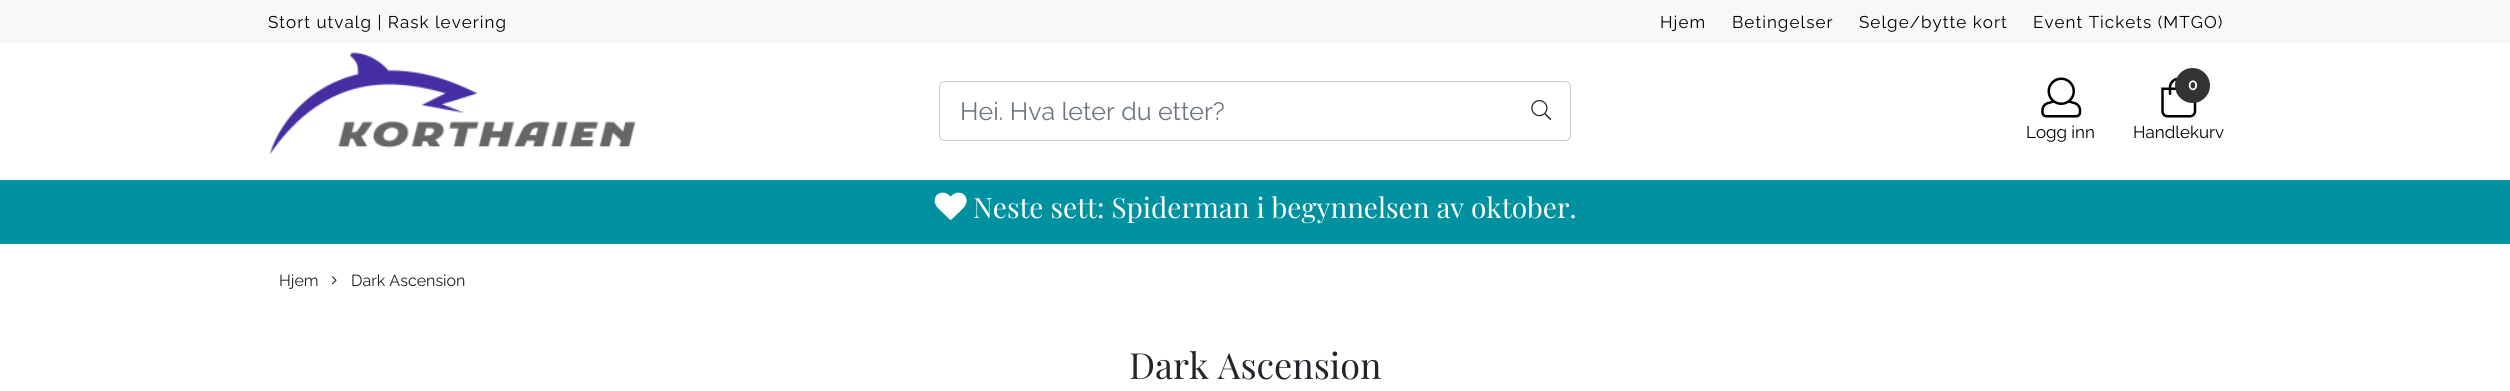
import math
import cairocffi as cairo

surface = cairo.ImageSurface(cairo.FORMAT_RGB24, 2510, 391)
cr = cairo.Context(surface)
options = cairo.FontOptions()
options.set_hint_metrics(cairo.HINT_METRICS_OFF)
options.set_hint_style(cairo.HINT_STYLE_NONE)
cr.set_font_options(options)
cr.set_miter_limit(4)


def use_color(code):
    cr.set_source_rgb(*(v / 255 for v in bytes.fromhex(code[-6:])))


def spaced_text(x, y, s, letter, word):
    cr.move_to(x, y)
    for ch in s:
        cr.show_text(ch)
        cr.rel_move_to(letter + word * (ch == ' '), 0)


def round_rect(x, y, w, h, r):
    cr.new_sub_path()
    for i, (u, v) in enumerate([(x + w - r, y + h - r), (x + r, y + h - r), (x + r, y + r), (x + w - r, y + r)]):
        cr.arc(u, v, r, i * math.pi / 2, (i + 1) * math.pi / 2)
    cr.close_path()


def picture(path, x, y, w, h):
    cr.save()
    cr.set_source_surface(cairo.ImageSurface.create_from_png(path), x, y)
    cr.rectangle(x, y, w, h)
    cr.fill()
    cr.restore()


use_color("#ffffff")
cr.paint()
use_color("#f8f8f8")
cr.rectangle(0, 0, 2510, 43)
cr.fill()
cr.select_font_face("Raleway")
cr.set_font_size(17)
use_color("#000000")
spaced_text(268, 28, "Stort utvalg | Rask levering", 1.05, 0)
spaced_text(1660, 28, "Hjem", 1.05, 0)
spaced_text(1732, 28, "Betingelser", 1.05, 0)
spaced_text(1859, 28, "Selge/bytte kort", 1.05, 0)
spaced_text(2033, 28, "Event Tickets (MTGO)", 1.05, 0)
picture("img1.png", 269, 52, 367, 102)
round_rect(939.5, 81.5, 631, 59, 5.5)
use_color("#cacaca")
cr.set_line_width(1)
cr.stroke()
cr.set_font_size(25)
use_color("#6c757d")
cr.move_to(960, 120)
cr.show_text("Hei. Hva leter du etter?")
picture("img2.png", 1531, 100, 21, 20)
picture("img3.png", 2041, 77, 41, 41)
cr.set_font_size(17)
use_color("#000000")
cr.move_to(2026, 138)
cr.show_text("Logg inn")
picture("img4.png", 2161, 77, 36, 41)
use_color("#333333")
cr.arc(2192.5, 85.5, 16, 0, 2 * math.pi)
cr.fill_preserve()
cr.set_line_width(3)
cr.stroke()
cr.select_font_face("Raleway SemiBold")
cr.set_font_size(16)
use_color("#ffffff")
cr.move_to(2188, 90)
cr.show_text("0")
cr.select_font_face("Raleway")
cr.set_font_size(17)
use_color("#000000")
cr.move_to(2133, 138)
cr.show_text("Handlekurv")
use_color("#0091a1")
cr.rectangle(0, 180, 2510, 64)
cr.fill()
picture("img5.png", 934, 192, 33, 28)
cr.select_font_face("Playfair Display")
cr.set_font_size(28)
use_color("#ffffff")
cr.move_to(973, 218)
cr.show_text("Neste sett: Spiderman i begynnelsen av oktober.")
cr.select_font_face("Raleway")
cr.set_font_size(16)
use_color("#202121")
cr.move_to(279, 286)
cr.show_text("Hjem")
picture("img6.png", 332, 276, 5, 9)
cr.move_to(351, 286)
cr.show_text("Dark Ascension")
cr.select_font_face("Playfair Display")
cr.set_font_size(36)
use_color("#212529")
cr.move_to(1129, 379)
cr.show_text("Dark Ascension")
surface.write_to_png("result.png")
